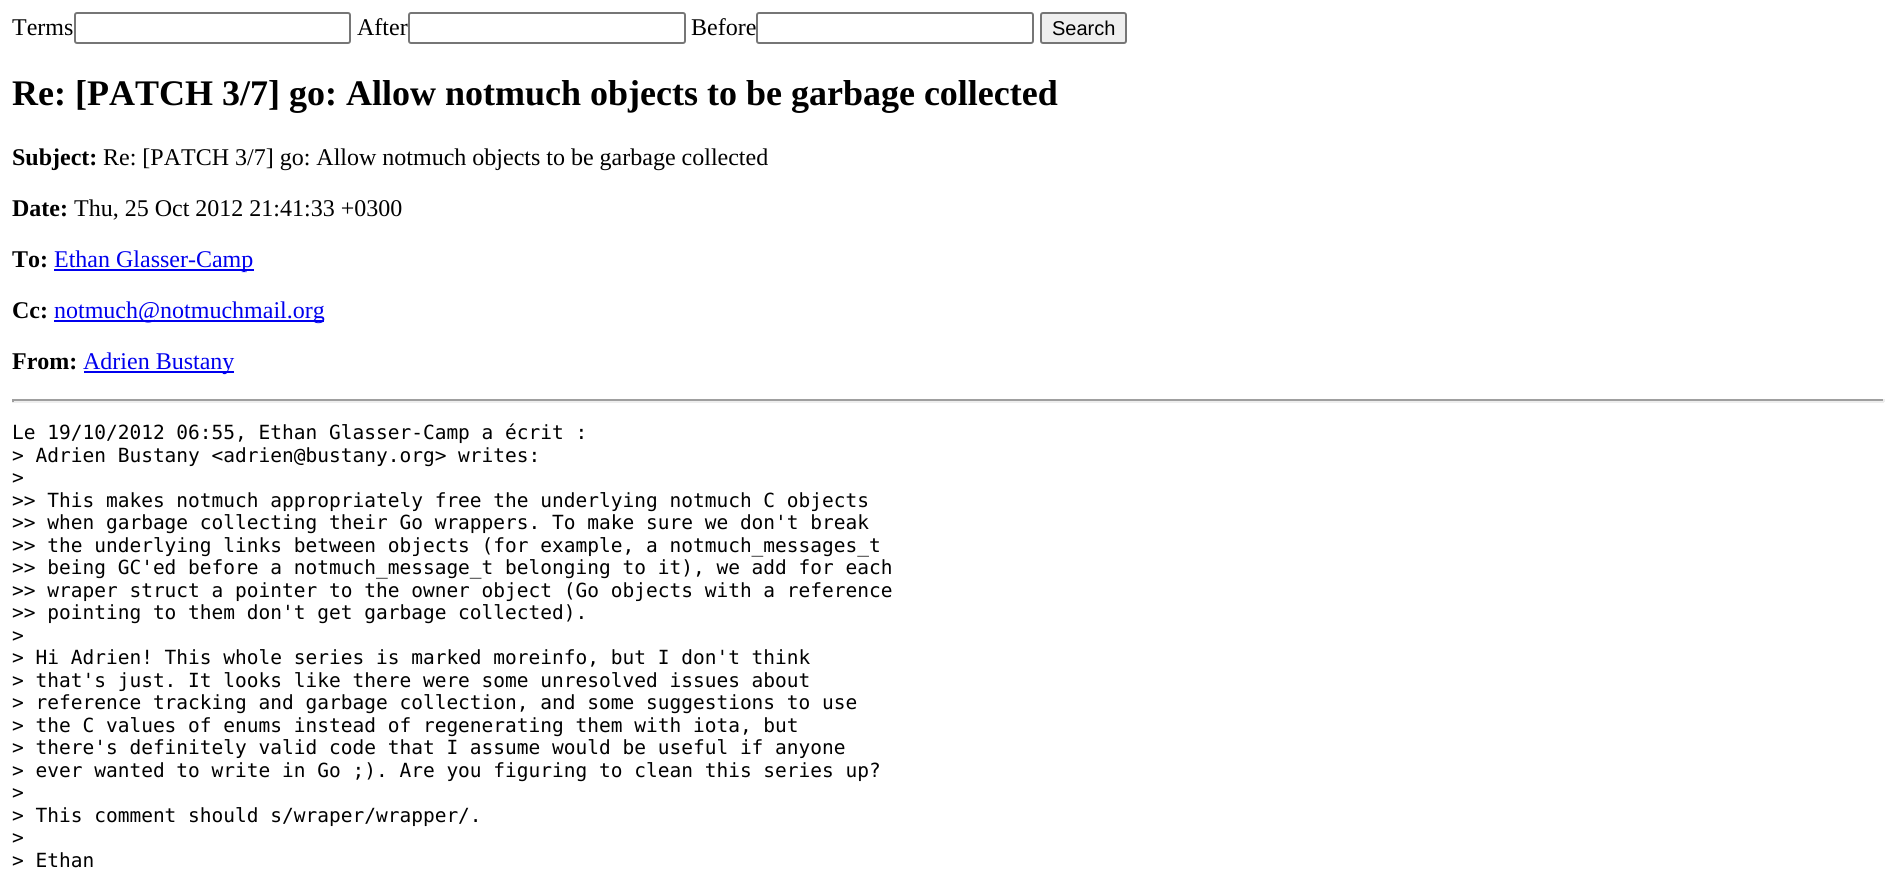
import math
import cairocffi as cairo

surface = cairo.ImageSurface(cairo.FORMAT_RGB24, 1896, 879)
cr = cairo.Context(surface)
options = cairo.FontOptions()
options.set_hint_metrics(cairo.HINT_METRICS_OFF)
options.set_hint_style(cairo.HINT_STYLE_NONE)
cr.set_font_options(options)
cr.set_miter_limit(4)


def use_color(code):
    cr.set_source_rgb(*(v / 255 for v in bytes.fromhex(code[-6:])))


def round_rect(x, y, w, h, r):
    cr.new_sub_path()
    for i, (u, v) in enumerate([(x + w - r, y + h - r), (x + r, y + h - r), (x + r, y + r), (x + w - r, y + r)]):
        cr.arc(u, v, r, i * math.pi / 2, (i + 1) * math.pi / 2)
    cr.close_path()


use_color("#ffffff")
cr.paint()
cr.select_font_face("Liberation Serif")
cr.set_font_size(24)
use_color("#000000")
cr.move_to(12, 35)
cr.show_text("Terms")
round_rect(75, 13, 275, 30, 2)
use_color("#767676")
cr.stroke()
use_color("#000000")
cr.move_to(357, 35)
cr.show_text("After")
round_rect(409, 13, 276, 30, 2)
use_color("#767676")
cr.stroke()
use_color("#000000")
cr.move_to(691, 35)
cr.show_text("Before")
round_rect(757, 13, 276, 30, 2)
use_color("#767676")
cr.stroke()
use_color("#efefef")
round_rect(1041, 13, 85, 30, 2)
cr.fill_preserve()
use_color("#767676")
cr.stroke()
cr.select_font_face("Liberation Sans")
cr.set_font_size(20)
use_color("#000000")
cr.move_to(1052, 35)
cr.show_text("Search")
cr.select_font_face("Liberation Serif", cairo.FONT_SLANT_NORMAL, cairo.FONT_WEIGHT_BOLD)
cr.set_font_size(36)
cr.move_to(12, 105)
cr.show_text("Re: [PATCH 3/7] go: Allow notmuch objects to be garbage collected")
cr.set_font_size(24)
cr.move_to(12, 165)
cr.show_text("Subject:")
cr.select_font_face("Liberation Serif")
cr.move_to(103, 165)
cr.show_text("Re: [PATCH 3/7] go: Allow notmuch objects to be garbage collected")
cr.select_font_face("Liberation Serif", cairo.FONT_SLANT_NORMAL, cairo.FONT_WEIGHT_BOLD)
cr.move_to(12, 216)
cr.show_text("Date:")
cr.select_font_face("Liberation Serif")
cr.move_to(74, 216)
cr.show_text("Thu, 25 Oct 2012 21:41:33 +0300")
cr.select_font_face("Liberation Serif", cairo.FONT_SLANT_NORMAL, cairo.FONT_WEIGHT_BOLD)
cr.move_to(12, 267)
cr.show_text("To:")
use_color("#0000ee")
cr.rectangle(54, 269, 200, 2)
cr.fill()
cr.select_font_face("Liberation Serif")
cr.move_to(54, 267)
cr.show_text("Ethan Glasser-Camp")
cr.select_font_face("Liberation Serif", cairo.FONT_SLANT_NORMAL, cairo.FONT_WEIGHT_BOLD)
use_color("#000000")
cr.move_to(12, 318)
cr.show_text("Cc:")
use_color("#0000ee")
cr.rectangle(54, 320, 270, 2)
cr.fill()
cr.select_font_face("Liberation Serif")
cr.move_to(54, 318)
cr.show_text("notmuch@notmuchmail.org")
cr.select_font_face("Liberation Serif", cairo.FONT_SLANT_NORMAL, cairo.FONT_WEIGHT_BOLD)
use_color("#000000")
cr.move_to(12, 369)
cr.show_text("From:")
use_color("#0000ee")
cr.rectangle(84, 371, 150, 2)
cr.fill()
cr.select_font_face("Liberation Serif")
cr.move_to(83, 369)
cr.show_text("Adrien Bustany")
use_color("#9f9f9f")
cr.rectangle(12, 399, 1872, 2)
cr.fill()
use_color("#eeeeee")
cr.rectangle(1883, 399, 2, 3)
cr.fill()
cr.rectangle(12, 401, 1872, 2)
cr.fill()
use_color("#9f9f9f")
cr.rectangle(12, 399, 2, 3)
cr.fill()
cr.select_font_face("DejaVu Sans Mono")
cr.set_font_size(19.5)
use_color("#000000")
cr.move_to(12, 439)
cr.show_text("Le 19/10/2012 06:55, Ethan Glasser-Camp a écrit :")
cr.move_to(12, 462)
cr.show_text("> Adrien Bustany <adrien@bustany.org> writes:")
cr.move_to(12, 484)
cr.show_text(">")
cr.move_to(12, 507)
cr.show_text(">> This makes notmuch appropriately free the underlying notmuch C objects")
cr.move_to(12, 529)
cr.show_text(">> when garbage collecting their Go wrappers. To make sure we don't break")
cr.move_to(12, 552)
cr.show_text(">> the underlying links between objects (for example, a notmuch_messages_t")
cr.move_to(12, 574)
cr.show_text(">> being GC'ed before a notmuch_message_t belonging to it), we add for each")
cr.move_to(12, 597)
cr.show_text(">> wraper struct a pointer to the owner object (Go objects with a reference")
cr.move_to(12, 619)
cr.show_text(">> pointing to them don't get garbage collected).")
cr.move_to(12, 642)
cr.show_text(">")
cr.move_to(12, 664)
cr.show_text("> Hi Adrien! This whole series is marked moreinfo, but I don't think")
cr.move_to(12, 687)
cr.show_text("> that's just. It looks like there were some unresolved issues about")
cr.move_to(12, 709)
cr.show_text("> reference tracking and garbage collection, and some suggestions to use")
cr.move_to(12, 732)
cr.show_text("> the C values of enums instead of regenerating them with iota, but")
cr.move_to(12, 754)
cr.show_text("> there's definitely valid code that I assume would be useful if anyone")
cr.move_to(12, 777)
cr.show_text("> ever wanted to write in Go ;). Are you figuring to clean this series up?")
cr.move_to(12, 799)
cr.show_text(">")
cr.move_to(12, 822)
cr.show_text("> This comment should s/wraper/wrapper/.")
cr.move_to(12, 844)
cr.show_text(">")
cr.move_to(12, 867)
cr.show_text("> Ethan")
surface.write_to_png("result.png")
